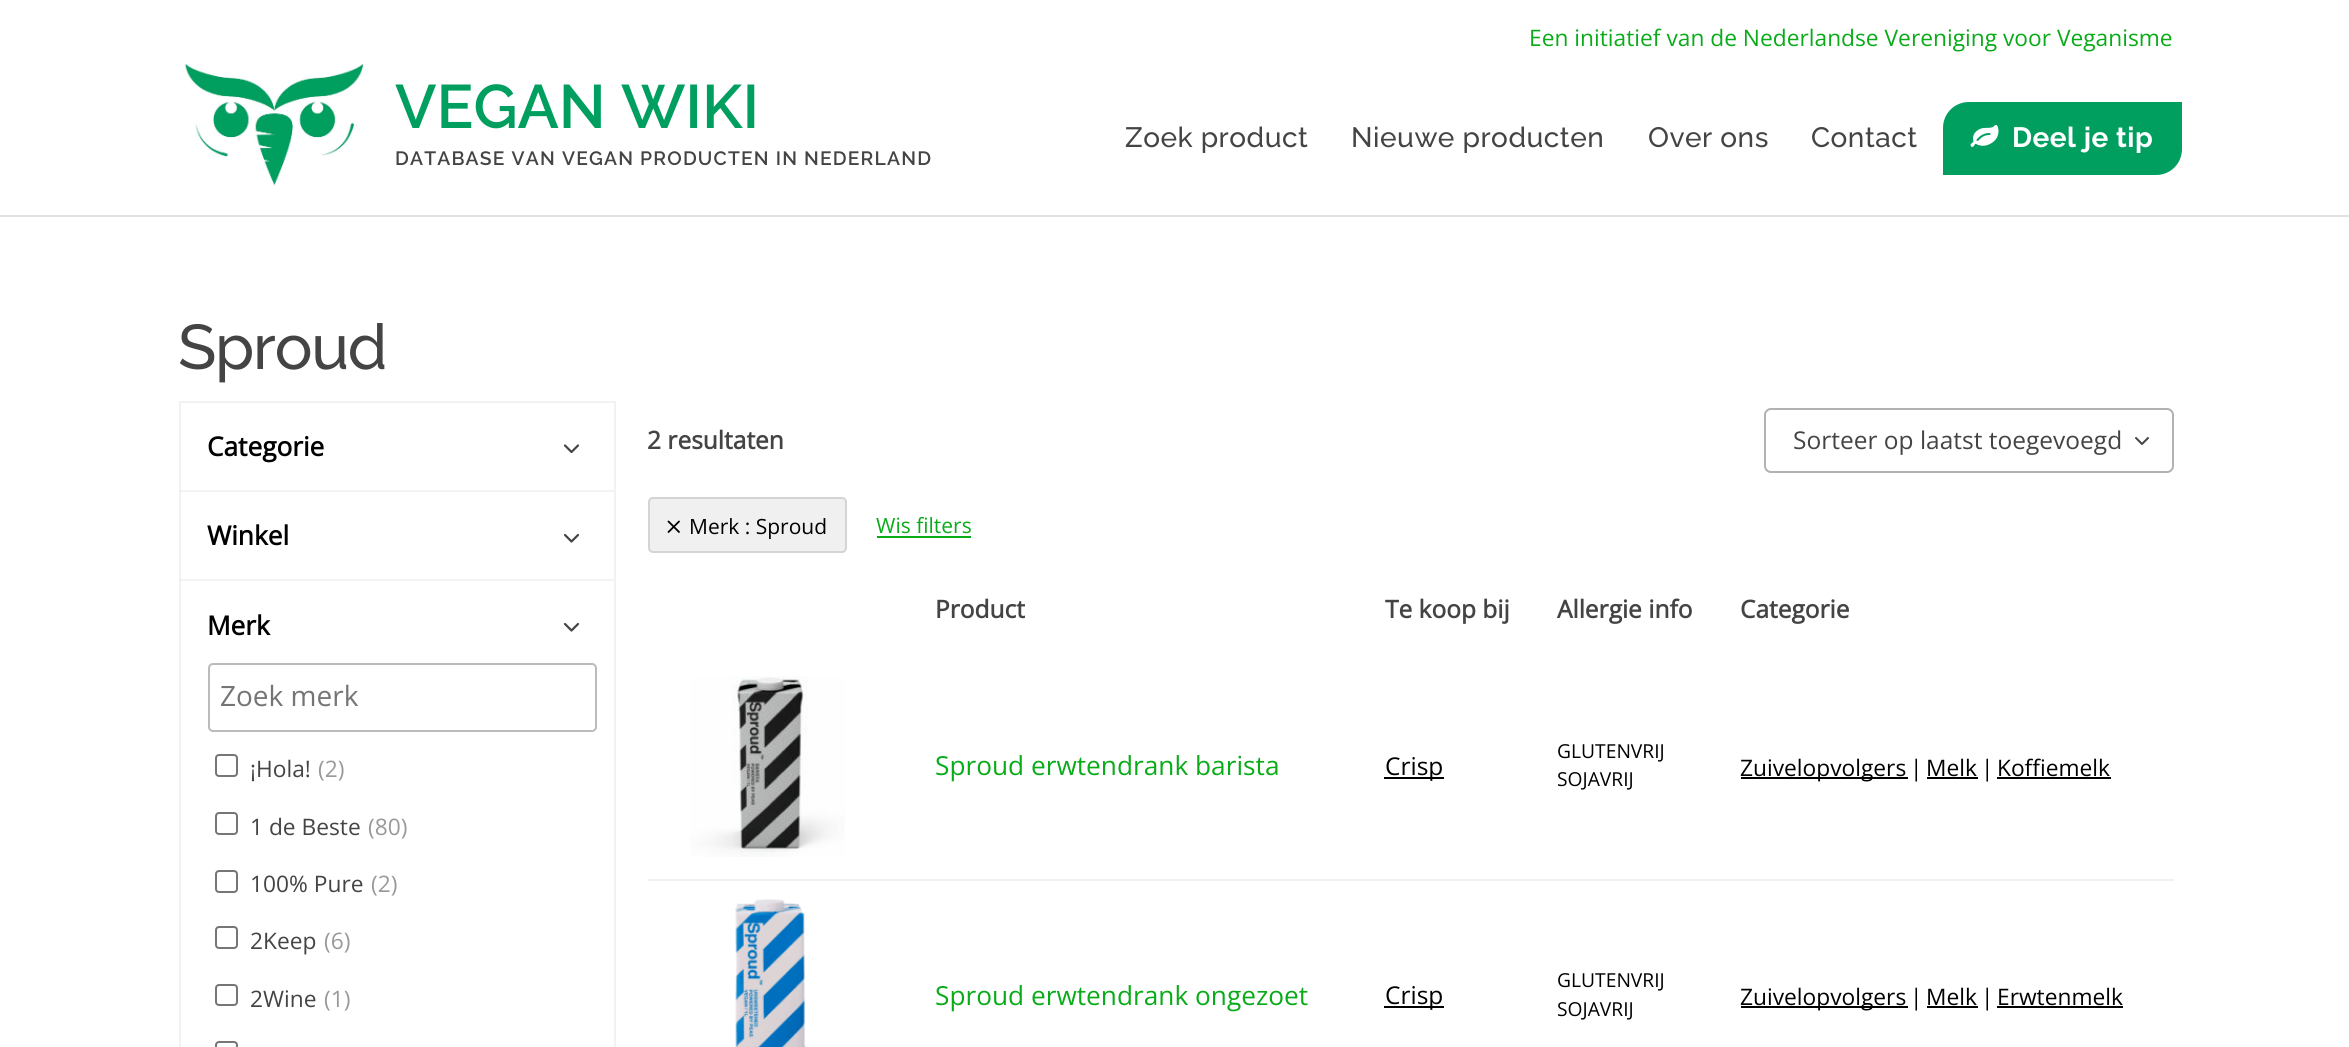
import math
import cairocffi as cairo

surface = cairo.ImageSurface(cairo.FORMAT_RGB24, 2349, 1047)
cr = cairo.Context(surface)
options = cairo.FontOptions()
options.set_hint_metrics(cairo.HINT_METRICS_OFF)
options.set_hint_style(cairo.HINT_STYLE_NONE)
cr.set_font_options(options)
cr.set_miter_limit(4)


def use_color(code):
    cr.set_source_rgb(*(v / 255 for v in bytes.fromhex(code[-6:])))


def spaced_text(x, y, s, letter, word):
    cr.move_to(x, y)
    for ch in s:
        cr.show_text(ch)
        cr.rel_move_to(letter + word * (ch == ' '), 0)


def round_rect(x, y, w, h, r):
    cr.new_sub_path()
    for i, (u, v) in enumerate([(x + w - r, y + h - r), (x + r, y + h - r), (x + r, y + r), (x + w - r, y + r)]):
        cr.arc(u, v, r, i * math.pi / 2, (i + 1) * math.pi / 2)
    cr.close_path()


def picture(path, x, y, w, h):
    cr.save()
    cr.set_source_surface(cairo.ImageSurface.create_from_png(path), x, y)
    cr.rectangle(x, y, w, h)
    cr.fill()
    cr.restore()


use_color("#ffffff")
cr.paint()
cr.select_font_face("Open Sans")
cr.set_font_size(22.75)
use_color("#09ab19")
cr.move_to(1529, 46)
cr.show_text("Een initiatief van de Nederlandse Vereniging voor Veganisme")
use_color("#e2e2e2")
cr.rectangle(0, 215, 2349, 2)
cr.fill()
picture("img1.png", 184, 63, 180, 123)
cr.select_font_face("Raleway SemiBold")
cr.set_font_size(61.25)
use_color("#009f5f")
cr.move_to(395, 128)
cr.show_text("VEGAN WIKI")
cr.set_font_size(19.25)
use_color("#444444")
spaced_text(395, 165, "DATABASE VAN VEGAN PRODUCTEN IN NEDERLAND", 1.2, 0)
cr.select_font_face("Raleway Medium")
cr.set_font_size(28)
spaced_text(1125, 147, "Zoek product", 0.5, 0)
spaced_text(1351, 147, "Nieuwe producten", 0.5, 0)
spaced_text(1648, 147, "Over ons", 0.5, 0)
spaced_text(1811, 147, "Contact", 0.5, 0)
use_color("#009f5f")
cr.new_path()
cr.move_to(1969, 103)
cr.line_to(2181, 103)
cr.line_to(2181, 149)
cr.curve_to(2181, 163, 2170, 174, 2156, 174)
cr.line_to(1944, 174)
cr.line_to(1944, 128)
cr.curve_to(1944, 114, 1955, 103, 1969, 103)
cr.close_path()
cr.fill_preserve()
cr.stroke()
picture("img2.png", 1970, 125, 29, 22)
cr.select_font_face("Raleway", cairo.FONT_SLANT_NORMAL, cairo.FONT_WEIGHT_BOLD)
use_color("#ffffff")
spaced_text(2012, 147, "Deel je tip", 0.5, 0)
cr.select_font_face("Raleway Medium")
cr.set_font_size(63)
use_color("#444444")
spaced_text(178, 369, "Sproud", -1.25, 0)
cr.rectangle(180, 402, 435, 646)
use_color("#f2f2f2")
cr.stroke()
cr.set_source_rgba(0, 0, 0, 0.05)
cr.rectangle(180, 490, 434, 2)
cr.fill()
cr.select_font_face("Open Sans", cairo.FONT_SLANT_NORMAL, cairo.FONT_WEIGHT_BOLD)
cr.set_font_size(26.25)
use_color("#000000")
cr.move_to(207, 456)
cr.show_text("Categorie")
cr.new_path()
cr.move_to(565, 445.5)
cr.line_to(571.5, 452)
cr.line_to(578, 445.5)
use_color("#444444")
cr.set_line_width(2.2)
cr.set_line_cap(cairo.LINE_CAP_ROUND)
cr.set_line_join(cairo.LINE_JOIN_ROUND)
cr.stroke()
cr.set_source_rgba(0, 0, 0, 0.05)
cr.rectangle(180, 579, 434, 2)
cr.fill()
use_color("#000000")
cr.move_to(207, 545)
cr.show_text("Winkel")
cr.new_path()
cr.move_to(565, 535)
cr.line_to(571.5, 541.5)
cr.line_to(578, 535)
use_color("#444444")
cr.stroke()
use_color("#000000")
cr.move_to(207, 635)
cr.show_text("Merk")
cr.new_path()
cr.move_to(565, 624)
cr.line_to(571.5, 630.5)
cr.line_to(578, 624)
use_color("#444444")
cr.stroke()
round_rect(209, 664, 387, 67, 4)
use_color("#bbbbbb")
cr.set_line_width(2)
cr.set_line_cap(cairo.LINE_CAP_BUTT)
cr.set_line_join(cairo.LINE_JOIN_MITER)
cr.stroke()
cr.select_font_face("Open Sans")
cr.set_font_size(28)
use_color("#757575")
cr.move_to(220, 706)
cr.show_text("Zoek merk")
round_rect(216, 755, 21, 21, 3)
use_color("#767676")
cr.stroke()
cr.set_font_size(22.75)
use_color("#444444")
cr.move_to(250, 777)
cr.show_text("¡Hola!")
use_color("#999999")
cr.move_to(318, 777)
cr.show_text("(2)")
round_rect(216, 813, 21, 21, 3)
use_color("#767676")
cr.stroke()
use_color("#444444")
cr.move_to(250, 835)
cr.show_text("1 de Beste")
use_color("#999999")
cr.move_to(368, 835)
cr.show_text("(80)")
round_rect(216, 871, 21, 21, 3)
use_color("#767676")
cr.stroke()
use_color("#444444")
cr.move_to(250, 892)
cr.show_text("100% Pure")
use_color("#999999")
cr.move_to(371, 892)
cr.show_text("(2)")
round_rect(216, 927, 21, 21, 3)
use_color("#767676")
cr.stroke()
use_color("#444444")
cr.move_to(250, 949)
cr.show_text("2Keep")
use_color("#999999")
cr.move_to(324, 949)
cr.show_text("(6)")
round_rect(216, 985, 21, 20, 3)
use_color("#767676")
cr.stroke()
use_color("#444444")
cr.move_to(250, 1007)
cr.show_text("2Wine")
use_color("#999999")
cr.move_to(324, 1007)
cr.show_text("(1)")
round_rect(216, 1042, 21, 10, 3)
use_color("#767676")
cr.stroke()
cr.select_font_face("Open Sans", cairo.FONT_SLANT_NORMAL, cairo.FONT_WEIGHT_BOLD)
cr.set_font_size(24.5)
use_color("#444444")
cr.move_to(647, 449)
cr.show_text("2 resultaten")
round_rect(1765, 409, 408, 63, 6)
use_color("#b2b2b2")
cr.stroke()
cr.select_font_face("Open Sans")
use_color("#444444")
cr.move_to(1793, 449)
cr.show_text("Sorteer op laatst toegevoegd")
cr.new_path()
cr.move_to(2136, 438)
cr.line_to(2142, 444)
cr.line_to(2148, 438)
cr.set_line_cap(cairo.LINE_CAP_ROUND)
cr.set_line_join(cairo.LINE_JOIN_ROUND)
cr.stroke()
use_color("#f0f0f0")
round_rect(648, 497, 199, 56, 5)
cr.fill()
round_rect(649, 498, 197, 54, 4)
cr.set_source_rgba(0, 0, 0, 0.12)
cr.set_line_cap(cairo.LINE_CAP_BUTT)
cr.set_line_join(cairo.LINE_JOIN_MITER)
cr.stroke()
cr.new_path()
cr.move_to(679, 521.5)
cr.line_to(668.5, 532)
cr.move_to(668.5, 521.5)
cr.line_to(679, 532)
use_color("#000000")
cr.set_line_width(1.8)
cr.set_line_cap(cairo.LINE_CAP_ROUND)
cr.set_line_join(cairo.LINE_JOIN_ROUND)
cr.stroke()
cr.set_font_size(21)
cr.move_to(689, 534)
cr.show_text("Merk : Sproud")
use_color("#09ab19")
cr.move_to(876, 533)
cr.show_text("Wis filters")
cr.rectangle(877, 536, 94, 2)
cr.fill()
cr.select_font_face("Open Sans", cairo.FONT_SLANT_NORMAL, cairo.FONT_WEIGHT_BOLD)
cr.set_font_size(24.5)
use_color("#444444")
cr.move_to(935, 618)
cr.show_text("Product")
cr.move_to(1385, 618)
cr.show_text("Te koop bij")
cr.move_to(1557, 618)
cr.show_text("Allergie info")
cr.move_to(1740, 618)
cr.show_text("Categorie")
use_color("#f0f0f0")
cr.rectangle(648, 879, 1526, 2)
cr.fill()
picture("img3.png", 690, 676, 155, 181)
cr.select_font_face("Open Sans")
cr.set_font_size(26.25)
use_color("#09ab19")
cr.move_to(935, 775)
cr.show_text("Sproud erwtendrank barista")
use_color("#000000")
cr.rectangle(1384, 777, 60, 2)
cr.fill()
cr.set_font_size(24.5)
cr.move_to(1385, 775)
cr.show_text("Crisp")
cr.set_font_size(19.25)
cr.move_to(1557, 758)
cr.show_text("GLUTENVRIJ")
cr.move_to(1557, 786)
cr.show_text("SOJAVRIJ")
cr.rectangle(1741, 777, 167, 2)
cr.fill()
cr.set_font_size(22.75)
cr.move_to(1740, 776)
cr.show_text("Zuivelopvolgers")
cr.move_to(1910, 776)
cr.show_text("|")
cr.move_to(1926, 776)
cr.show_text("Melk")
cr.rectangle(1927, 777, 51, 2)
cr.fill()
cr.move_to(1981, 776)
cr.show_text("|")
cr.move_to(1997, 776)
cr.show_text("Koffiemelk")
cr.rectangle(1997, 777, 114, 2)
cr.fill()
picture("img4.png", 735, 899, 71, 148)
cr.set_font_size(26.25)
use_color("#09ab19")
cr.move_to(935, 1005)
cr.show_text("Sproud erwtendrank ongezoet")
use_color("#000000")
cr.rectangle(1384, 1006, 60, 2)
cr.fill()
cr.set_font_size(24.5)
cr.move_to(1385, 1004)
cr.show_text("Crisp")
cr.set_font_size(19.25)
cr.move_to(1557, 987)
cr.show_text("GLUTENVRIJ")
cr.move_to(1557, 1016)
cr.show_text("SOJAVRIJ")
cr.rectangle(1741, 1006, 167, 2)
cr.fill()
cr.set_font_size(22.75)
cr.move_to(1740, 1005)
cr.show_text("Zuivelopvolgers")
cr.move_to(1910, 1005)
cr.show_text("|")
cr.move_to(1926, 1005)
cr.show_text("Melk")
cr.rectangle(1927, 1006, 51, 2)
cr.fill()
cr.move_to(1981, 1005)
cr.show_text("|")
cr.move_to(1997, 1005)
cr.show_text("Erwtenmelk")
cr.rectangle(1997, 1006, 126, 2)
cr.fill()
surface.write_to_png("result.png")
